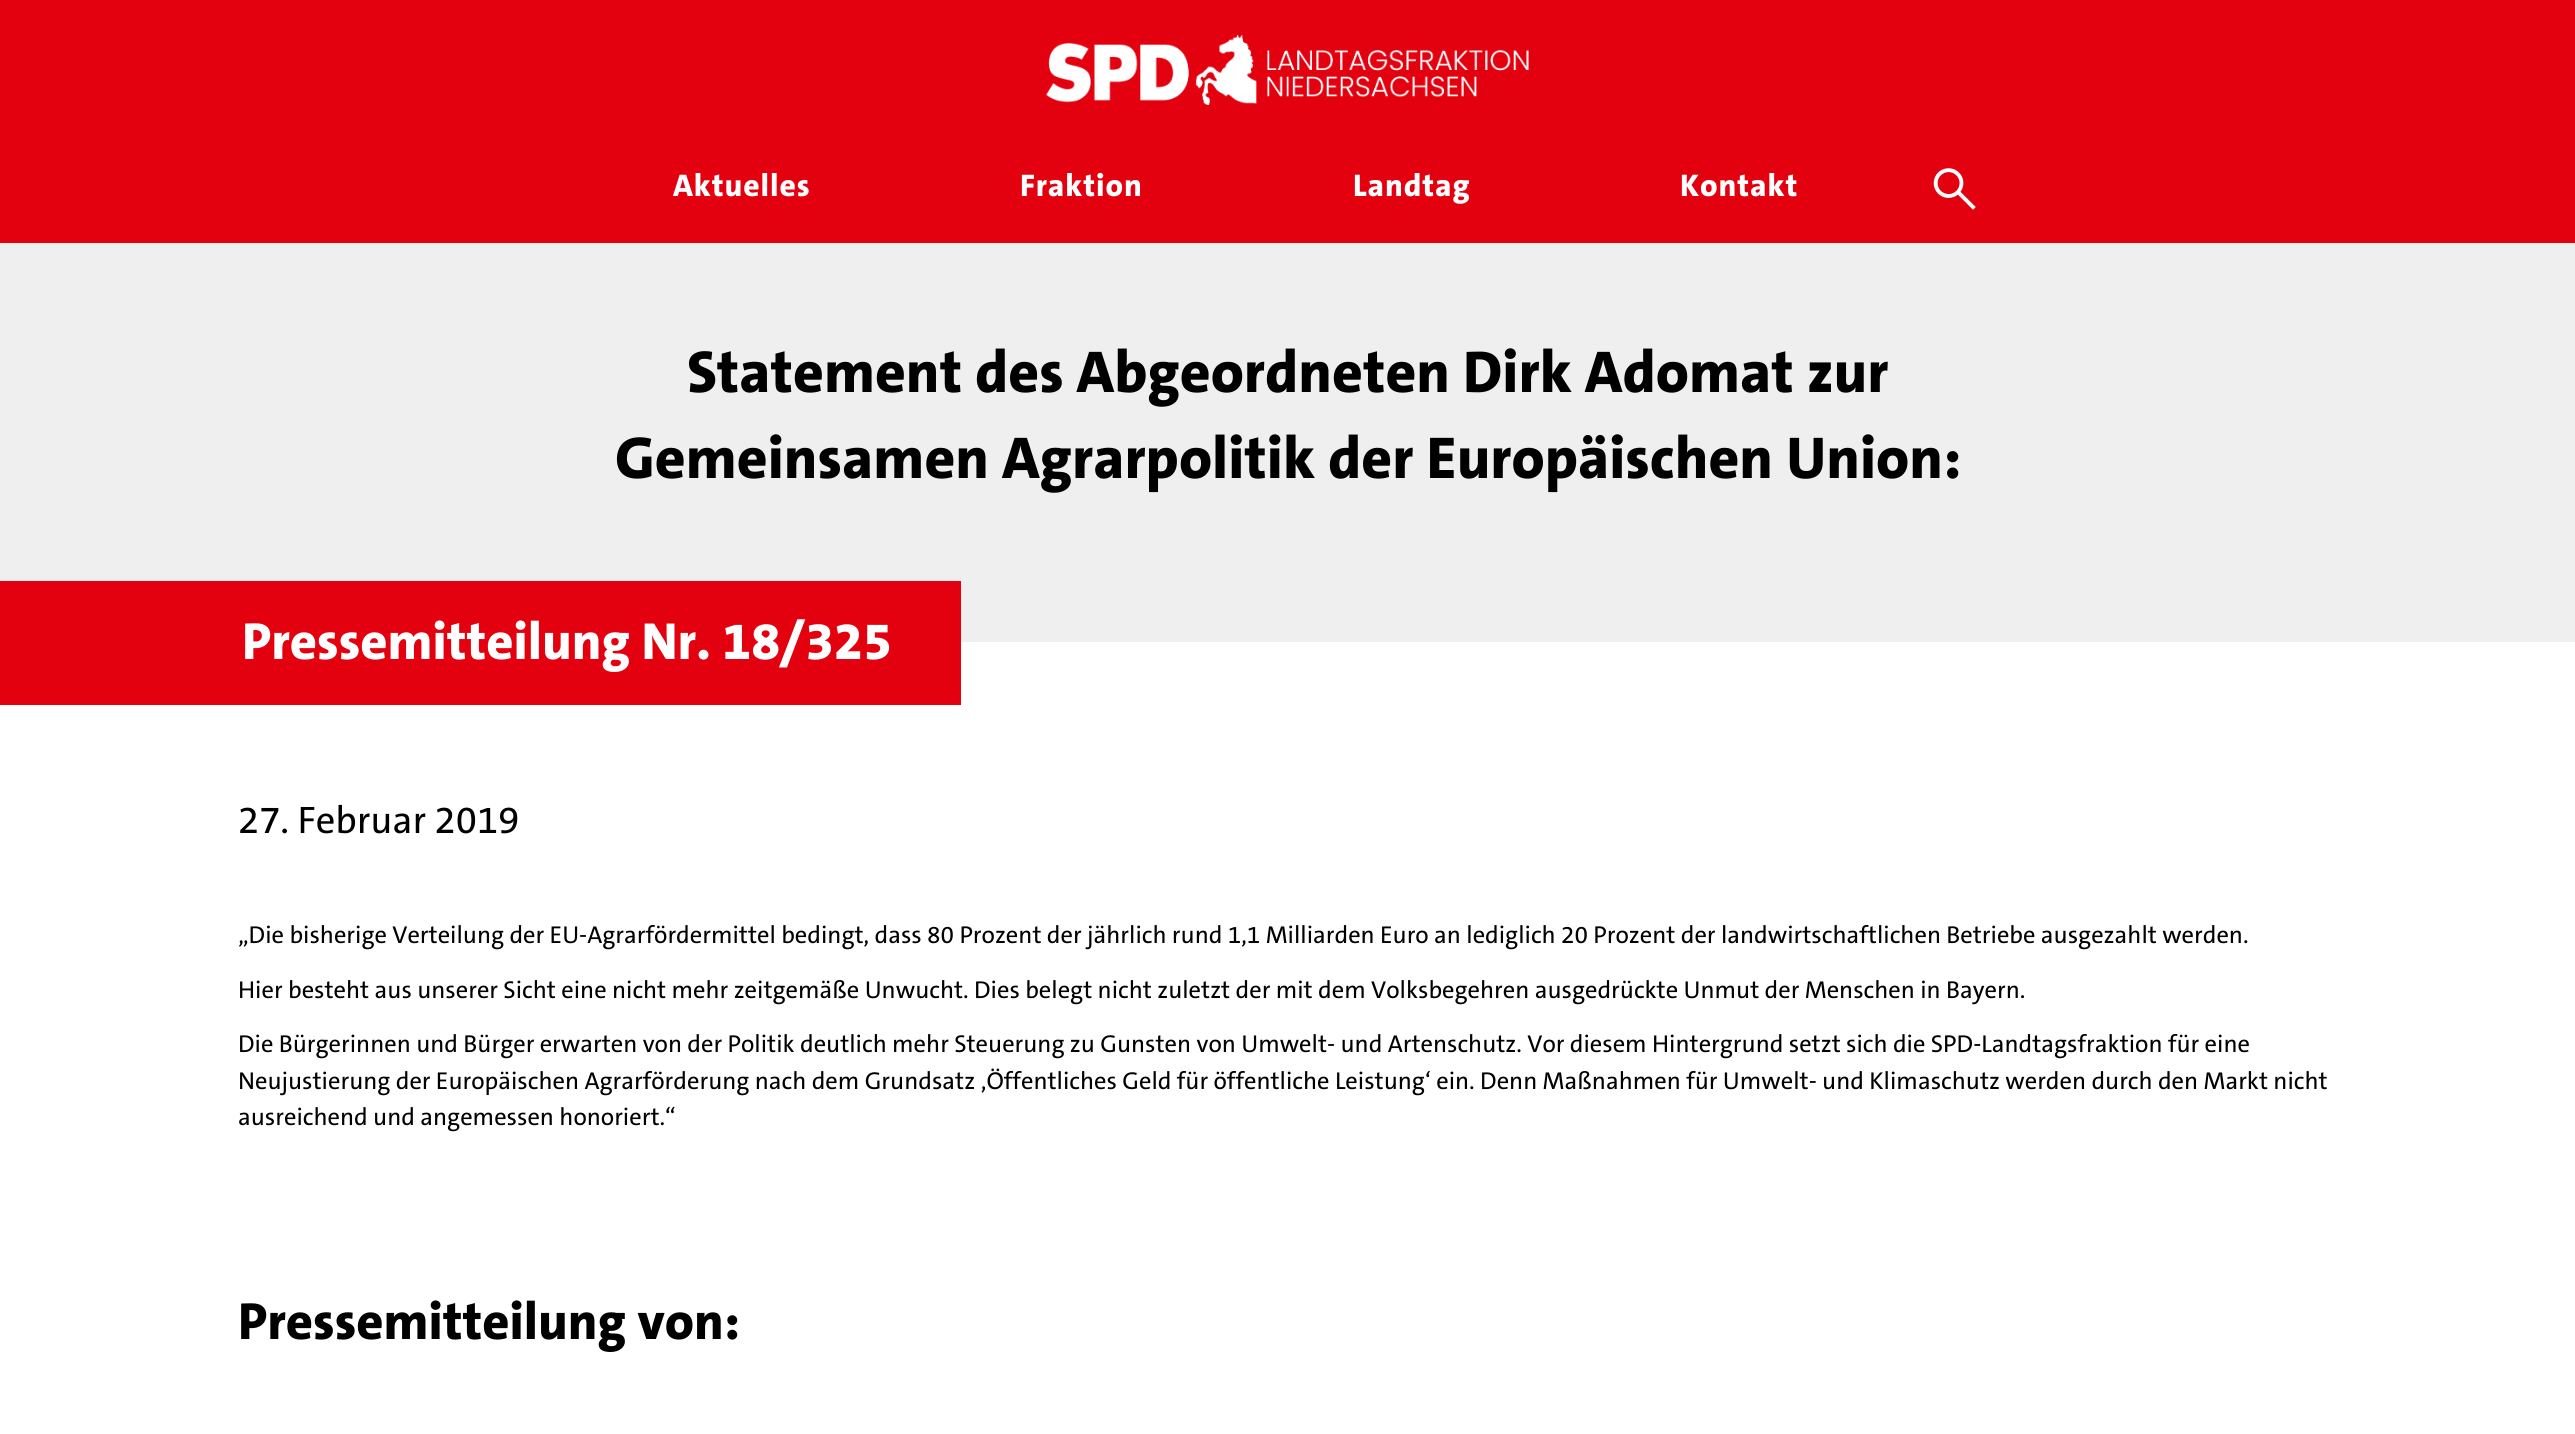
import math
import cairocffi as cairo

surface = cairo.ImageSurface(cairo.FORMAT_RGB24, 2575, 1434)
cr = cairo.Context(surface)
options = cairo.FontOptions()
options.set_hint_metrics(cairo.HINT_METRICS_OFF)
options.set_hint_style(cairo.HINT_STYLE_NONE)
cr.set_font_options(options)
cr.set_miter_limit(4)


def use_color(code):
    cr.set_source_rgb(*(v / 255 for v in bytes.fromhex(code[-6:])))


def spaced_text(x, y, s, letter, word):
    cr.move_to(x, y)
    for ch in s:
        cr.show_text(ch)
        cr.rel_move_to(letter + word * (ch == ' '), 0)


def picture(path, x, y, w, h):
    cr.save()
    cr.set_source_surface(cairo.ImageSurface.create_from_png(path), x, y)
    cr.rectangle(x, y, w, h)
    cr.fill()
    cr.restore()


use_color("#ffffff")
cr.paint()
use_color("#e3000f")
cr.rectangle(0, 0, 2575, 243)
cr.fill()
picture("img1.png", 1046, 35, 483, 70)
cr.select_font_face("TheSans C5 ExtraBold")
cr.set_font_size(31.5)
use_color("#ffffff")
spaced_text(673, 196, "Aktuelles", 0.9, 0)
spaced_text(1020, 196, "Fraktion", 0.9, 0)
spaced_text(1353, 196, "Landtag", 0.9, 0)
spaced_text(1680, 196, "Kontakt", 0.9, 0)
picture("img2.png", 1933, 168, 43, 42)
use_color("#efefef")
cr.rectangle(0, 243, 2575, 399)
cr.fill()
cr.set_font_size(59.5)
use_color("#000000")
cr.move_to(687, 392)
cr.show_text("Statement des Abgeordneten Dirk Adomat zur")
cr.move_to(615, 478)
cr.show_text("Gemeinsamen Agrarpolitik der Europäischen Union:")
use_color("#e3000f")
cr.rectangle(0, 581, 961, 124)
cr.fill()
cr.set_font_size(52.5)
use_color("#ffffff")
cr.move_to(242, 659)
cr.show_text("Pressemitteilung Nr. 18/325")
cr.select_font_face("TheSans C5 Medium")
cr.set_font_size(38.5)
use_color("#000000")
cr.move_to(238, 833)
cr.show_text("27. Februar 2019")
cr.set_font_size(24.5)
cr.move_to(238, 943)
cr.show_text("„Die bisherige Verteilung der EU-Agrarfördermittel bedingt, dass 80 Prozent der jährlich rund 1,1 Milliarden Euro an lediglich 20 Prozent der landwirtschaftlichen Betriebe ausgezahlt werden.")
cr.move_to(238, 998)
cr.show_text("Hier besteht aus unserer Sicht eine nicht mehr zeitgemäße Unwucht. Dies belegt nicht zuletzt der mit dem Volksbegehren ausgedrückte Unmut der Menschen in Bayern.")
cr.move_to(238, 1052)
cr.show_text("Die Bürgerinnen und Bürger erwarten von der Politik deutlich mehr Steuerung zu Gunsten von Umwelt- und Artenschutz. Vor diesem Hintergrund setzt sich die SPD-Landtagsfraktion für eine")
cr.move_to(238, 1089)
cr.show_text("Neujustierung der Europäischen Agrarförderung nach dem Grundsatz ‚Öffentliches Geld für öffentliche Leistung‘ ein. Denn Maßnahmen für Umwelt- und Klimaschutz werden durch den Markt nicht")
cr.move_to(238, 1125)
cr.show_text("ausreichend und angemessen honoriert.“")
cr.select_font_face("TheSans C5 ExtraBold")
cr.set_font_size(52.5)
cr.move_to(238, 1339)
cr.show_text("Pressemitteilung von:")
surface.write_to_png("result.png")
